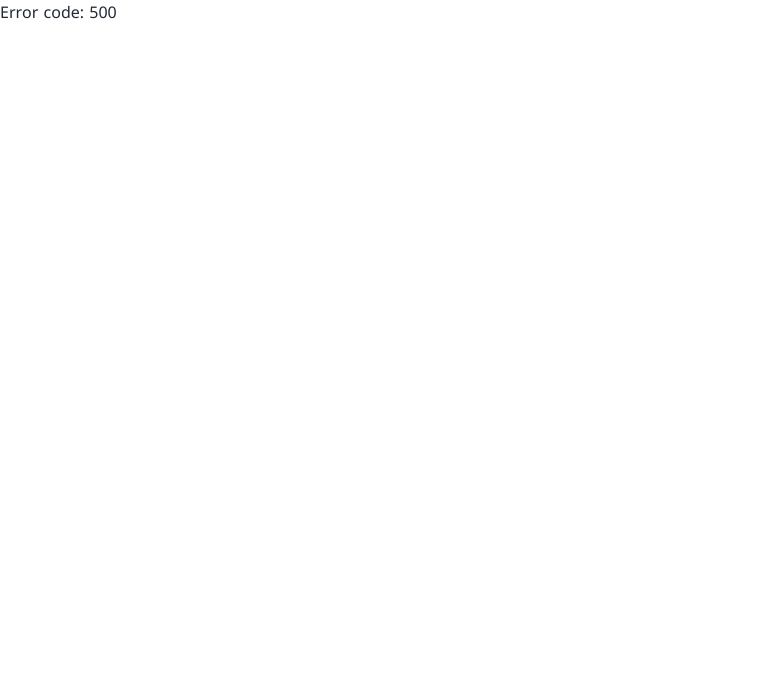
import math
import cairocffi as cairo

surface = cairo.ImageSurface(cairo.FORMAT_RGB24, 779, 693)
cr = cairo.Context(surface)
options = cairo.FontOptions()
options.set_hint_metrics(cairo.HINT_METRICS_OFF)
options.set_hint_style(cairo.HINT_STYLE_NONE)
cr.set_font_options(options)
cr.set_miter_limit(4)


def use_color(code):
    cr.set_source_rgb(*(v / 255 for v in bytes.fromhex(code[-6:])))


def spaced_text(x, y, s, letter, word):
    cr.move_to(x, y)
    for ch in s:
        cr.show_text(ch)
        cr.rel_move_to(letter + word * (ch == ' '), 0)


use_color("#ffffff")
cr.paint()
cr.select_font_face("Noto Sans")
cr.set_font_size(16)
use_color("#1f2937")
spaced_text(0, 18, "Error code: 500", 0, 1)
surface.write_to_png("result.png")
